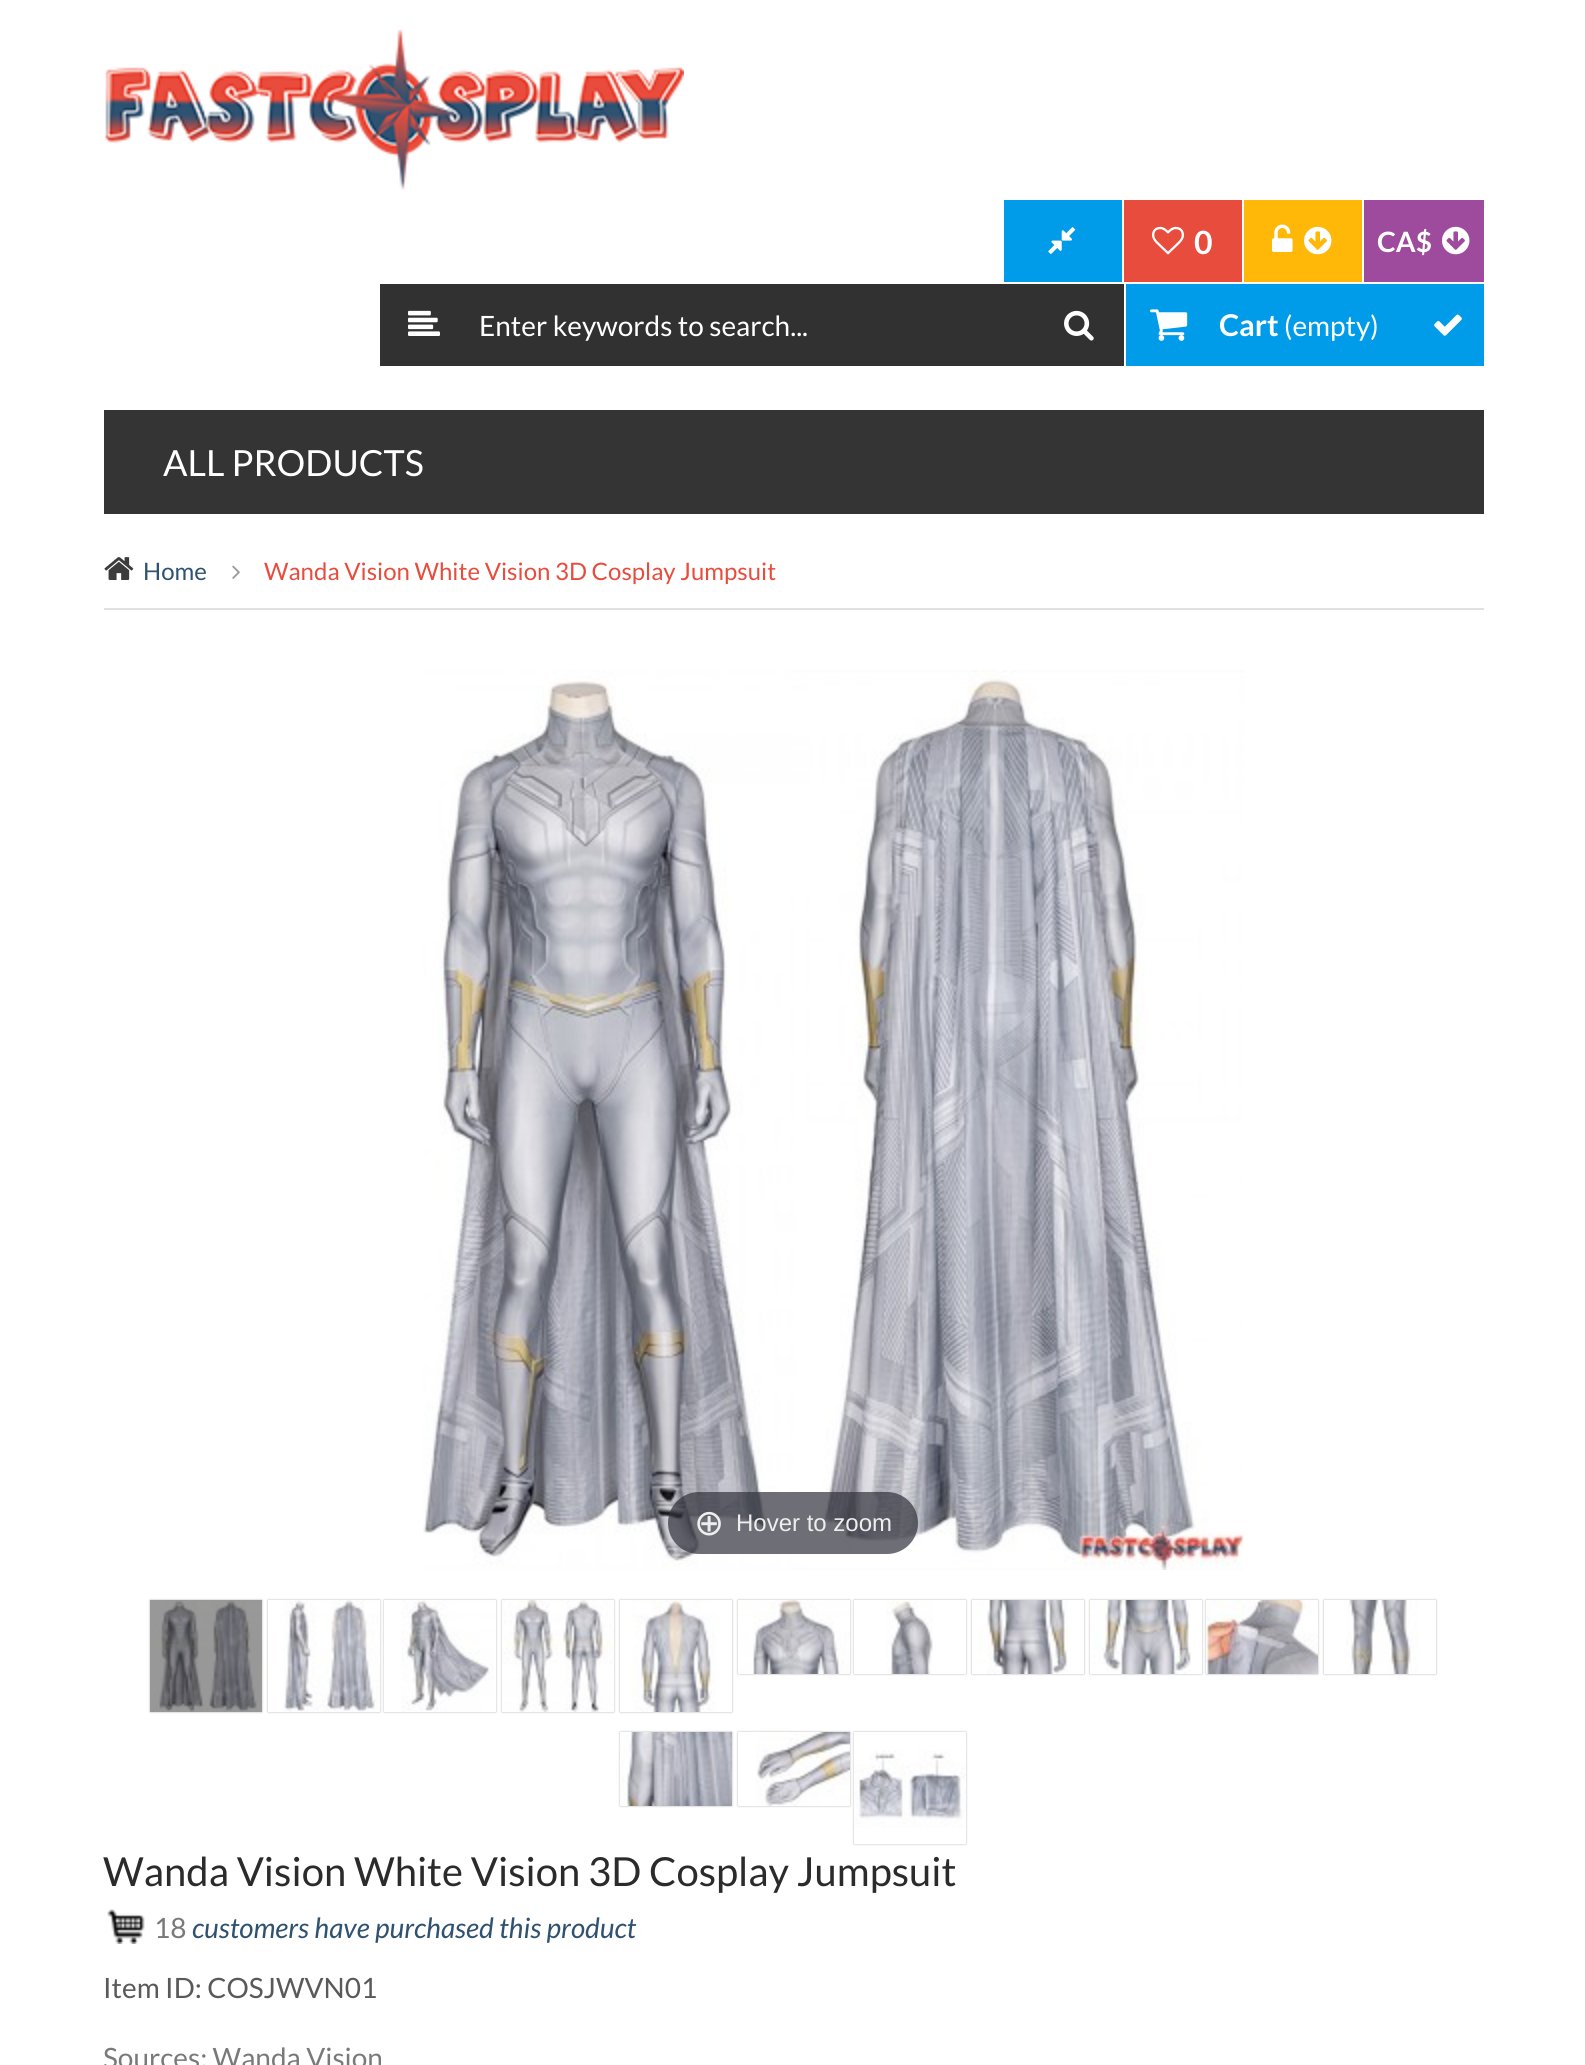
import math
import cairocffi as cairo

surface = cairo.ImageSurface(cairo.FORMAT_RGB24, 1585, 2065)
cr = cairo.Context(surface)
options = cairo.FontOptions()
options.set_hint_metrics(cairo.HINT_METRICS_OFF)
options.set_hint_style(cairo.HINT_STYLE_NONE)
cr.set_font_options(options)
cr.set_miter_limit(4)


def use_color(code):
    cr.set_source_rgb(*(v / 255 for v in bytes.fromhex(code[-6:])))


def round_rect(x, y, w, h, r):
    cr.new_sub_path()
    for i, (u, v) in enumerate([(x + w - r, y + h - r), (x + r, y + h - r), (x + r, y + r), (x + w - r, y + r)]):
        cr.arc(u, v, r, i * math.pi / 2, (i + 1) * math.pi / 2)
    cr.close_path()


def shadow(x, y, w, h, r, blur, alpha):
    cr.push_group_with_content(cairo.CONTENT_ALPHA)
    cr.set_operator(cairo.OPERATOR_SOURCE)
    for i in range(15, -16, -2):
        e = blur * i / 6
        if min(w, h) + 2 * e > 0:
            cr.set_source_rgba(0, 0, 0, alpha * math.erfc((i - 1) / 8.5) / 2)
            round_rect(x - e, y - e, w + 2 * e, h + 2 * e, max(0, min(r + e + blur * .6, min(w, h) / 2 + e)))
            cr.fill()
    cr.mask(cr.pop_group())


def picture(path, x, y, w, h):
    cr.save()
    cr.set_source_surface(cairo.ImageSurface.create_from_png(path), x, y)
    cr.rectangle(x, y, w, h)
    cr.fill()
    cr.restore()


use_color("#ffffff")
cr.paint()
picture("img1.png", 105, 30, 579, 160)
use_color("#009ce9")
cr.rectangle(1004, 200, 118, 82)
cr.fill()
picture("img2.png", 1048, 227, 28, 27)
use_color("#e84c3d")
cr.rectangle(1124, 200, 118, 82)
cr.fill()
picture("img3.png", 1152, 226, 32, 29)
cr.select_font_face("Lato", cairo.FONT_SLANT_NORMAL, cairo.FONT_WEIGHT_BOLD)
cr.set_font_size(32)
use_color("#ffffff")
cr.move_to(1194, 254)
cr.show_text("0")
use_color("#ffb708")
cr.rectangle(1244, 200, 118, 82)
cr.fill()
picture("img4.png", 1272, 224, 21, 28)
picture("img5.png", 1304, 226, 28, 29)
use_color("#9e4b9d")
cr.rectangle(1364, 200, 120, 82)
cr.fill()
cr.set_font_size(28)
use_color("#ffffff")
cr.move_to(1377, 252)
cr.show_text("CA$")
picture("img6.png", 1442, 226, 28, 29)
use_color("#313131")
cr.rectangle(380, 284, 744, 82)
cr.fill()
picture("img7.png", 408, 310, 32, 26)
cr.select_font_face("Lato")
use_color("#ffffff")
cr.move_to(479, 336)
cr.show_text("Enter keywords to search...")
picture("img8.png", 1064, 310, 30, 31)
use_color("#009ce9")
cr.rectangle(1126, 284, 358, 82)
cr.fill()
picture("img9.png", 1150, 309, 38, 32)
cr.select_font_face("Lato", cairo.FONT_SLANT_NORMAL, cairo.FONT_WEIGHT_BOLD)
cr.set_font_size(30)
use_color("#ffffff")
cr.move_to(1219, 336)
cr.show_text("Cart")
cr.select_font_face("Lato")
cr.set_font_size(28)
cr.move_to(1284, 336)
cr.show_text("(empty)")
picture("img10.png", 1434, 314, 28, 22)
use_color("#343434")
cr.rectangle(104, 410, 1380, 104)
cr.fill()
cr.set_font_size(36)
use_color("#ffffff")
cr.move_to(163, 476)
cr.show_text("ALL PRODUCTS")
use_color("#e1e1e1")
cr.rectangle(104, 608, 1380, 2)
cr.fill()
picture("img11.png", 104, 557, 30, 23)
cr.set_font_size(24)
use_color("#2f5271")
cr.move_to(143, 580)
cr.show_text("Home")
picture("img12.png", 232, 565, 8, 14)
use_color("#e84c3d")
cr.move_to(264, 580)
cr.show_text("Wanda Vision White Vision 3D Cosplay Jumpsuit")
picture("img13.png", 423, 670, 821, 900)
cr.set_source_rgba(0.192, 0.2, 0.239, 0.7)
round_rect(668, 1492, 250, 62, 31)
cr.fill()
cr.select_font_face("DejaVu Sans")
cr.set_font_size(36)
use_color("#eeeeee")
cr.move_to(694, 1535)
cr.show_text("⊕")
cr.select_font_face("Liberation Sans")
cr.set_font_size(24)
cr.move_to(736, 1531)
cr.show_text("Hover to zoom")
use_color("#000000")
shadow(150, 1600, 112, 112, 0, 1, 0.3)
picture("img14.png", 150, 1600, 112, 112)
cr.save()
cr.set_fill_rule(cairo.FILL_RULE_EVEN_ODD)
cr.new_path()
cr.move_to(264, 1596)
cr.line_to(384, 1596)
cr.line_to(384, 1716)
cr.line_to(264, 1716)
cr.close_path()
cr.move_to(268, 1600)
cr.line_to(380, 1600)
cr.line_to(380, 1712)
cr.line_to(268, 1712)
cr.close_path()
cr.clip()
shadow(268, 1600, 112, 112, 0, 1, 0.3)
cr.restore()
picture("img15.png", 283, 1600, 97, 112)
cr.save()
cr.set_fill_rule(cairo.FILL_RULE_EVEN_ODD)
cr.new_path()
cr.move_to(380, 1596)
cr.line_to(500, 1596)
cr.line_to(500, 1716)
cr.line_to(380, 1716)
cr.close_path()
cr.move_to(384, 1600)
cr.line_to(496, 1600)
cr.line_to(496, 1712)
cr.line_to(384, 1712)
cr.close_path()
cr.clip()
shadow(384, 1600, 112, 112, 0, 1, 0.3)
cr.restore()
picture("img16.png", 401, 1600, 93, 112)
shadow(502, 1600, 112, 112, 0, 1, 0.3)
picture("img17.png", 502, 1600, 112, 112)
cr.save()
cr.set_fill_rule(cairo.FILL_RULE_EVEN_ODD)
cr.new_path()
cr.move_to(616, 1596)
cr.line_to(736, 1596)
cr.line_to(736, 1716)
cr.line_to(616, 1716)
cr.close_path()
cr.move_to(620, 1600)
cr.line_to(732, 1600)
cr.line_to(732, 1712)
cr.line_to(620, 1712)
cr.close_path()
cr.clip()
shadow(620, 1600, 112, 112, 0, 1, 0.3)
cr.restore()
picture("img18.png", 632, 1600, 84, 112)
shadow(738, 1600, 112, 74, 0, 1, 0.3)
picture("img19.png", 738, 1600, 112, 74)
cr.save()
cr.set_fill_rule(cairo.FILL_RULE_EVEN_ODD)
cr.new_path()
cr.move_to(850, 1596)
cr.line_to(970, 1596)
cr.line_to(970, 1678)
cr.line_to(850, 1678)
cr.close_path()
cr.move_to(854, 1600)
cr.line_to(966, 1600)
cr.line_to(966, 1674)
cr.line_to(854, 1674)
cr.close_path()
cr.clip()
shadow(854, 1600, 112, 74, 0, 1, 0.3)
cr.restore()
picture("img20.png", 886, 1600, 47, 74)
cr.save()
cr.set_fill_rule(cairo.FILL_RULE_EVEN_ODD)
cr.new_path()
cr.move_to(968, 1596)
cr.line_to(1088, 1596)
cr.line_to(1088, 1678)
cr.line_to(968, 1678)
cr.close_path()
cr.move_to(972, 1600)
cr.line_to(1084, 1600)
cr.line_to(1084, 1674)
cr.line_to(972, 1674)
cr.close_path()
cr.clip()
shadow(972, 1600, 112, 74, 0, 1, 0.3)
cr.restore()
picture("img21.png", 977, 1600, 91, 74)
cr.save()
cr.set_fill_rule(cairo.FILL_RULE_EVEN_ODD)
cr.new_path()
cr.move_to(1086, 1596)
cr.line_to(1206, 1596)
cr.line_to(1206, 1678)
cr.line_to(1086, 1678)
cr.close_path()
cr.move_to(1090, 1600)
cr.line_to(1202, 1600)
cr.line_to(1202, 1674)
cr.line_to(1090, 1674)
cr.close_path()
cr.clip()
shadow(1090, 1600, 112, 74, 0, 1, 0.3)
cr.restore()
picture("img22.png", 1090, 1600, 101, 74)
shadow(1206, 1600, 112, 74, 0, 1, 0.3)
picture("img23.png", 1206, 1600, 112, 74)
cr.save()
cr.set_fill_rule(cairo.FILL_RULE_EVEN_ODD)
cr.new_path()
cr.move_to(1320, 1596)
cr.line_to(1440, 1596)
cr.line_to(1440, 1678)
cr.line_to(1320, 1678)
cr.close_path()
cr.move_to(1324, 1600)
cr.line_to(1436, 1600)
cr.line_to(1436, 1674)
cr.line_to(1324, 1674)
cr.close_path()
cr.clip()
shadow(1324, 1600, 112, 74, 0, 1, 0.3)
cr.restore()
picture("img24.png", 1346, 1600, 73, 74)
shadow(620, 1732, 112, 74, 0, 1, 0.3)
picture("img25.png", 620, 1732, 112, 74)
cr.save()
cr.set_fill_rule(cairo.FILL_RULE_EVEN_ODD)
cr.new_path()
cr.move_to(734, 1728)
cr.line_to(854, 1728)
cr.line_to(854, 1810)
cr.line_to(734, 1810)
cr.close_path()
cr.move_to(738, 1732)
cr.line_to(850, 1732)
cr.line_to(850, 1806)
cr.line_to(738, 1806)
cr.close_path()
cr.clip()
shadow(738, 1732, 112, 74, 0, 1, 0.3)
cr.restore()
picture("img26.png", 756, 1732, 94, 74)
cr.save()
cr.set_fill_rule(cairo.FILL_RULE_EVEN_ODD)
cr.new_path()
cr.move_to(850, 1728)
cr.line_to(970, 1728)
cr.line_to(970, 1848)
cr.line_to(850, 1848)
cr.close_path()
cr.move_to(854, 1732)
cr.line_to(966, 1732)
cr.line_to(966, 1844)
cr.line_to(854, 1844)
cr.close_path()
cr.clip()
shadow(854, 1732, 112, 112, 0, 1, 0.3)
cr.restore()
picture("img27.png", 854, 1750, 112, 78)
cr.select_font_face("Lato")
cr.set_font_size(40)
use_color("#2b2b2b")
cr.move_to(103, 1886)
cr.show_text("Wanda Vision White Vision 3D Cosplay Jumpsuit")
picture("img28.png", 107, 1909, 38, 35)
cr.set_font_size(28)
use_color("#797979")
cr.move_to(154, 1938)
cr.show_text("18")
cr.select_font_face("Lato", cairo.FONT_SLANT_ITALIC)
use_color("#2f5271")
cr.move_to(192, 1938)
cr.show_text("customers have purchased this product")
cr.select_font_face("Lato")
use_color("#595959")
cr.move_to(103, 1998)
cr.show_text("Item ID: COSJWVN01")
use_color("#797979")
cr.move_to(103, 2068)
cr.show_text("Sources: Wanda Vision")
surface.write_to_png("result.png")
